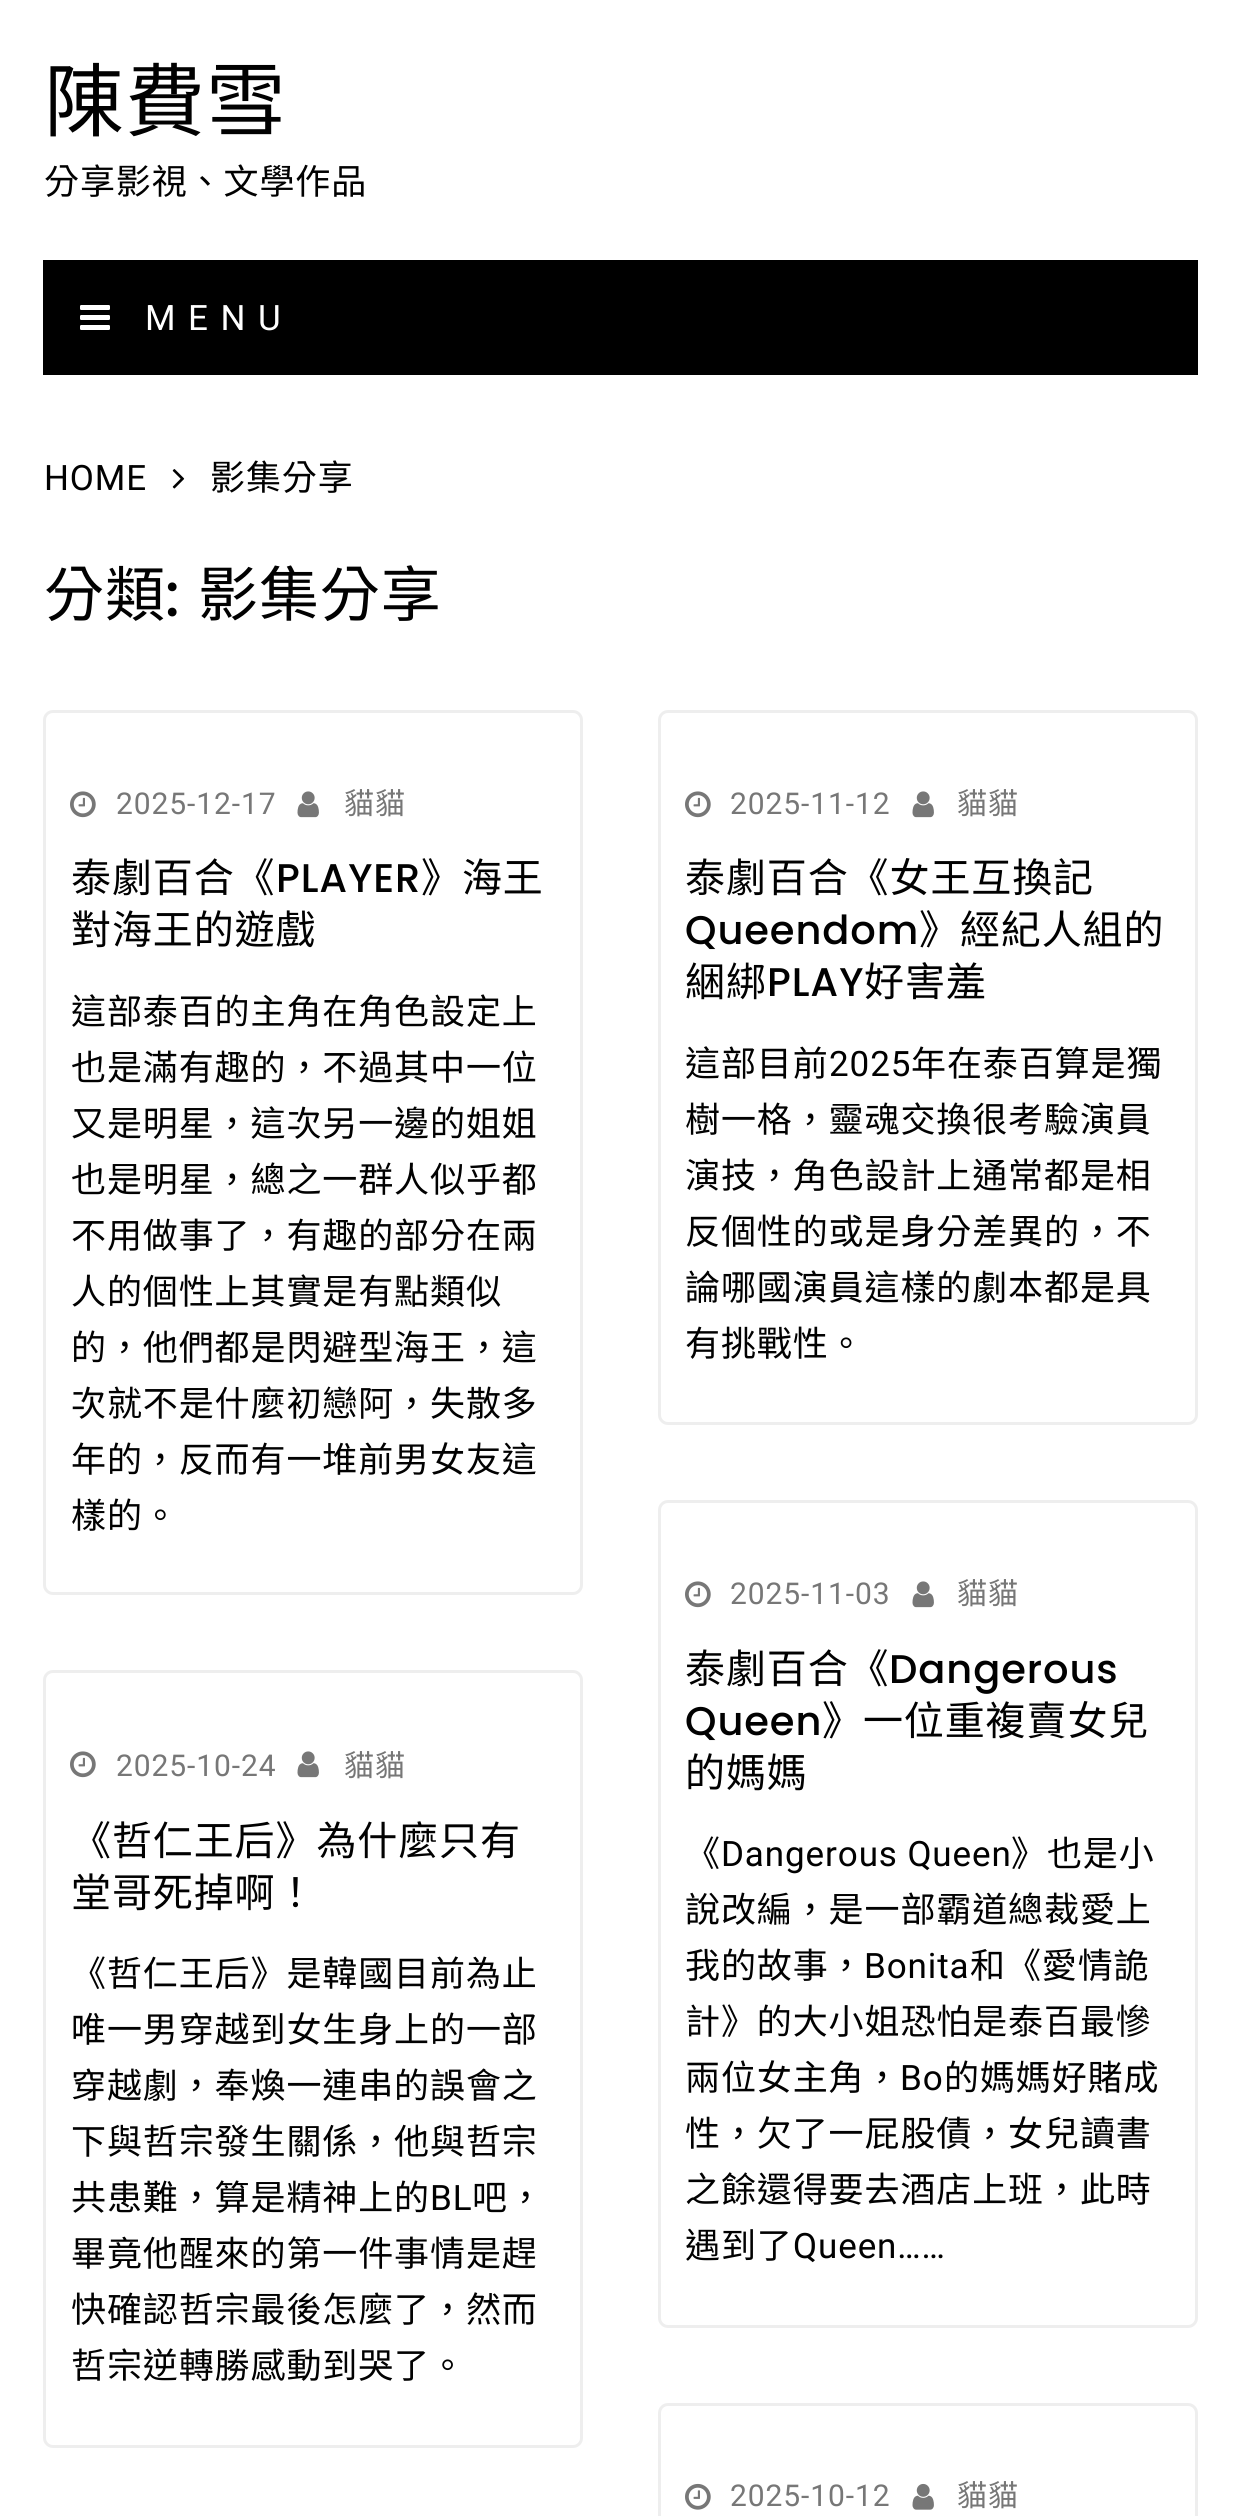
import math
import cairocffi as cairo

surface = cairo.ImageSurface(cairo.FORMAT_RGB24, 1240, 2516)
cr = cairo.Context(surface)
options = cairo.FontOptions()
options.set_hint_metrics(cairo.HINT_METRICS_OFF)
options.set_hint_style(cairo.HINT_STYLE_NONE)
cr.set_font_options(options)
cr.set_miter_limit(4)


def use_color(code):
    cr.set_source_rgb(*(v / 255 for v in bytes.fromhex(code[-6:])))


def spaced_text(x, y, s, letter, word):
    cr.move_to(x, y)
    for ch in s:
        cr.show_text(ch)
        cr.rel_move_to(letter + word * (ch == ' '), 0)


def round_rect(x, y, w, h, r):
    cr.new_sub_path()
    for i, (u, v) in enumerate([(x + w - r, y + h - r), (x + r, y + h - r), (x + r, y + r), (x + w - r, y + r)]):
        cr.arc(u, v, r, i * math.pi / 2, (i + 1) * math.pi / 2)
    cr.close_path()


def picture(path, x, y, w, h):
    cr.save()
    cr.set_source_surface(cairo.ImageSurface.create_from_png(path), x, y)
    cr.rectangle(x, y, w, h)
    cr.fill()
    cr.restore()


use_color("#ffffff")
cr.paint()
cr.select_font_face("Noto Sans CJK TC")
cr.set_font_size(80)
use_color("#010101")
spaced_text(44, 130, "陳費雪", 0.9, 0)
cr.set_font_size(35)
spaced_text(44, 194, "分享影視、文學作品", 0.9, 0)
use_color("#000000")
cr.rectangle(43, 260, 1155, 115)
cr.fill()
picture("img1.png", 80, 305, 30, 25)
cr.select_font_face("Roboto")
use_color("#ffffff")
spaced_text(145, 330, "MENU", 12.5, 0)
use_color("#010101")
spaced_text(44, 490, "HOME", 0.9, 0)
picture("img2.png", 172, 469, 13, 20)
cr.select_font_face("Noto Sans CJK TC")
spaced_text(210, 490, "影集分享", 0.9, 0)
cr.set_font_size(60)
spaced_text(44, 616, "分類", 0.9, 0)
cr.select_font_face("Poppins Medium")
spaced_text(165, 616, ":", 0.9, 0)
cr.select_font_face("Noto Sans CJK TC")
spaced_text(198, 616, "影集分享", 0.9, 0)
round_rect(44.5, 711.5, 537, 882, 8.5)
use_color("#eeeeee")
cr.set_line_width(3)
cr.stroke()
picture("img3.png", 70, 791, 26, 27)
cr.select_font_face("Roboto")
cr.set_font_size(30)
use_color("#777777")
spaced_text(116, 814, "2025-12-17", 0.9, 0)
picture("img4.png", 297, 791, 22, 27)
cr.select_font_face("Noto Sans CJK TC")
spaced_text(344, 814, "貓貓", 0.9, 0)
cr.set_font_size(40)
use_color("#010101")
spaced_text(71, 892, "泰劇百合《", 0.9, 0)
cr.select_font_face("Poppins Medium")
spaced_text(276, 892, "PLAYER", 0.9, 0)
cr.select_font_face("Noto Sans CJK TC")
spaced_text(421, 892, "》海王", 0.9, 0)
spaced_text(71, 944, "對海王的遊戲", 0.9, 0)
cr.set_font_size(35)
spaced_text(71, 1024, "這部泰百的主角在角色設定上", 0.9, 0)
spaced_text(71, 1080, "也是滿有趣的，不過其中一位", 0.9, 0)
spaced_text(71, 1136, "又是明星，這次另一邊的姐姐", 0.9, 0)
spaced_text(71, 1192, "也是明星，總之一群人似乎都", 0.9, 0)
spaced_text(71, 1248, "不用做事了，有趣的部分在兩", 0.9, 0)
spaced_text(71, 1304, "人的個性上其實是有點類似", 0.9, 0)
spaced_text(71, 1360, "的，他們都是閃避型海王，這", 0.9, 0)
spaced_text(71, 1416, "次就不是什麼初戀阿，失散多", 0.9, 0)
spaced_text(71, 1472, "年的，反而有一堆前男女友這", 0.9, 0)
spaced_text(71, 1528, "樣的。", 0.9, 0)
round_rect(659.5, 711.5, 537, 712, 8.5)
use_color("#eeeeee")
cr.stroke()
picture("img3.png", 685, 791, 26, 27)
cr.select_font_face("Roboto")
cr.set_font_size(30)
use_color("#777777")
spaced_text(730, 814, "2025-11-12", 0.9, 0)
picture("img4.png", 912, 791, 22, 27)
cr.select_font_face("Noto Sans CJK TC")
spaced_text(957, 814, "貓貓", 0.9, 0)
cr.set_font_size(40)
use_color("#010101")
spaced_text(685, 892, "泰劇百合《女王互換記", 0.9, 0)
cr.select_font_face("Poppins Medium")
spaced_text(685, 944, "Queendom", 0.9, 0)
cr.select_font_face("Noto Sans CJK TC")
spaced_text(919, 944, "》經紀人組的", 0.9, 0)
spaced_text(685, 996, "綑綁", 0.9, 0)
cr.select_font_face("Poppins Medium")
spaced_text(767, 996, "PLAY", 0.9, 0)
cr.select_font_face("Noto Sans CJK TC")
spaced_text(864, 996, "好害羞", 0.9, 0)
cr.set_font_size(35)
spaced_text(685, 1076, "這部目前", 0.9, 0)
cr.select_font_face("Roboto")
spaced_text(829, 1076, "2025", 0.9, 0)
cr.select_font_face("Noto Sans CJK TC")
spaced_text(911, 1076, "年在泰百算是獨", 0.9, 0)
spaced_text(685, 1132, "樹一格，靈魂交換很考驗演員", 0.9, 0)
spaced_text(685, 1188, "演技，角色設計上通常都是相", 0.9, 0)
spaced_text(685, 1244, "反個性的或是身分差異的，不", 0.9, 0)
spaced_text(685, 1300, "論哪國演員這樣的劇本都是具", 0.9, 0)
spaced_text(685, 1356, "有挑戰性。", 0.9, 0)
round_rect(44.5, 1671.5, 537, 775, 8.5)
use_color("#eeeeee")
cr.stroke()
picture("img3.png", 70, 1751, 26, 27)
cr.select_font_face("Roboto")
cr.set_font_size(30)
use_color("#777777")
spaced_text(116, 1776, "2025-10-24", 0.9, 0)
picture("img4.png", 297, 1751, 22, 27)
cr.select_font_face("Noto Sans CJK TC")
spaced_text(344, 1776, "貓貓", 0.9, 0)
cr.set_font_size(40)
use_color("#010101")
spaced_text(71, 1855, "《哲仁王后》為什麼只有", 0.9, 0)
spaced_text(71, 1907, "堂哥死掉啊！", 0.9, 0)
cr.set_font_size(35)
spaced_text(71, 1986, "《哲仁王后》是韓國目前為止", 0.9, 0)
spaced_text(71, 2042, "唯一男穿越到女生身上的一部", 0.9, 0)
spaced_text(71, 2098, "穿越劇，奉煥一連串的誤會之", 0.9, 0)
spaced_text(71, 2154, "下與哲宗發生關係，他與哲宗", 0.9, 0)
spaced_text(71, 2210, "共患難，算是精神上的", 0.9, 0)
cr.select_font_face("Roboto")
spaced_text(430, 2210, "BL", 0.9, 0)
cr.select_font_face("Noto Sans CJK TC")
spaced_text(472, 2210, "吧，", 0.9, 0)
spaced_text(71, 2266, "畢竟他醒來的第一件事情是趕", 0.9, 0)
spaced_text(71, 2322, "快確認哲宗最後怎麼了，然而", 0.9, 0)
spaced_text(71, 2378, "哲宗逆轉勝感動到哭了。", 0.9, 0)
round_rect(659.5, 1501.5, 537, 825, 8.5)
use_color("#eeeeee")
cr.stroke()
picture("img3.png", 685, 1581, 26, 27)
cr.select_font_face("Roboto")
cr.set_font_size(30)
use_color("#777777")
spaced_text(730, 1604, "2025-11-03", 0.9, 0)
picture("img4.png", 912, 1581, 22, 27)
cr.select_font_face("Noto Sans CJK TC")
spaced_text(957, 1604, "貓貓", 0.9, 0)
cr.set_font_size(40)
use_color("#010101")
spaced_text(685, 1683, "泰劇百合《", 0.9, 0)
cr.select_font_face("Poppins Medium")
spaced_text(889, 1683, "Dangerous", 0.9, 0)
spaced_text(685, 1735, "Queen", 0.9, 0)
cr.select_font_face("Noto Sans CJK TC")
spaced_text(822, 1735, "》一位重複賣女兒", 0.9, 0)
spaced_text(685, 1787, "的媽媽", 0.9, 0)
cr.set_font_size(35)
spaced_text(685, 1866, "《", 0.9, 0)
cr.select_font_face("Roboto")
spaced_text(721, 1866, "Dangerous Queen", 0.9, 0)
cr.select_font_face("Noto Sans CJK TC")
spaced_text(1011, 1866, "》也是小", 0.9, 0)
spaced_text(685, 1922, "說改編，是一部霸道總裁愛上", 0.9, 0)
spaced_text(685, 1978, "我的故事，", 0.9, 0)
cr.select_font_face("Roboto")
spaced_text(864, 1978, "Bonita", 0.9, 0)
cr.select_font_face("Noto Sans CJK TC")
spaced_text(970, 1978, "和《愛情詭", 0.9, 0)
spaced_text(685, 2034, "計》的大小姐恐怕是泰百最慘", 0.9, 0)
spaced_text(685, 2090, "兩位女主角，", 0.9, 0)
cr.select_font_face("Roboto")
spaced_text(900, 2090, "Bo", 0.9, 0)
cr.select_font_face("Noto Sans CJK TC")
spaced_text(944, 2090, "的媽媽好賭成", 0.9, 0)
spaced_text(685, 2146, "性，欠了一屁股債，女兒讀書", 0.9, 0)
spaced_text(685, 2202, "之餘還得要去酒店上班，此時", 0.9, 0)
spaced_text(685, 2258, "遇到了", 0.9, 0)
cr.select_font_face("Roboto")
spaced_text(793, 2258, "Queen……", 0.9, 0)
round_rect(659.5, 2404.5, 537, 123, 8.5)
use_color("#eeeeee")
cr.stroke()
picture("img5.png", 685, 2483, 26, 27)
cr.set_font_size(30)
use_color("#777777")
spaced_text(730, 2506, "2025-10-12", 0.9, 0)
picture("img6.png", 912, 2483, 22, 27)
cr.select_font_face("Noto Sans CJK TC")
spaced_text(957, 2506, "貓貓", 0.9, 0)
surface.write_to_png("result.png")
